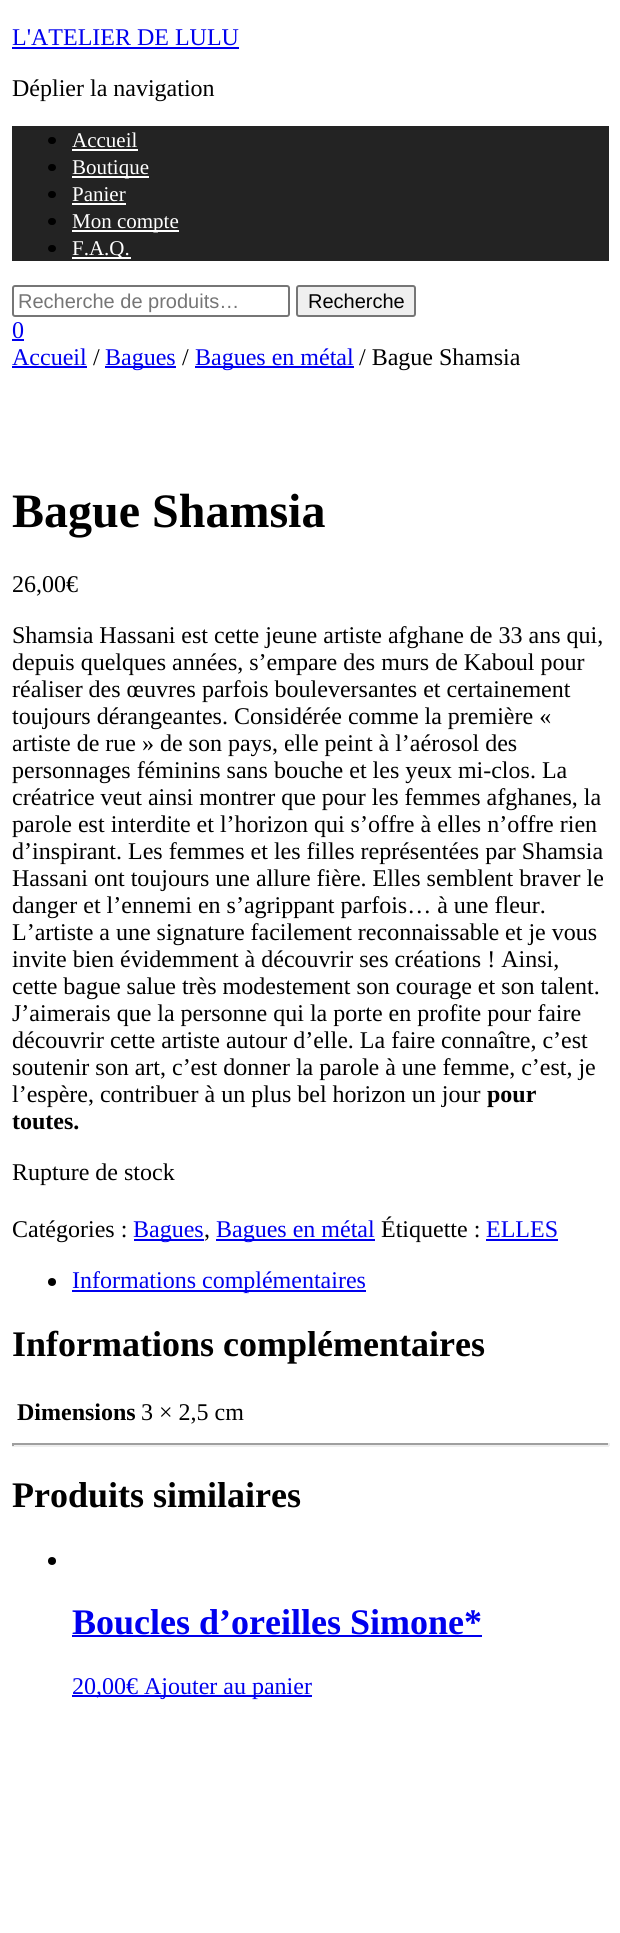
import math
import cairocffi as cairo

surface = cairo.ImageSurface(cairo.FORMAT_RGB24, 620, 1933)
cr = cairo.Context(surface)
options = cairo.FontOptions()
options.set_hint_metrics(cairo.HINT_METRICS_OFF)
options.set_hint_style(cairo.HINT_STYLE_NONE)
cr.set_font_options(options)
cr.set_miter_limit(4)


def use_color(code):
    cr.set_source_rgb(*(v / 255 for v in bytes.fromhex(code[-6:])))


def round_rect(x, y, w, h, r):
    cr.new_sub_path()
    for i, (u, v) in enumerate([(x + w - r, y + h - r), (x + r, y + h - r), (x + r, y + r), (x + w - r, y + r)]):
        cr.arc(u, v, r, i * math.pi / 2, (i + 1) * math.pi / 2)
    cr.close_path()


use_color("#ffffff")
cr.paint()
cr.select_font_face("Liberation Serif")
cr.set_font_size(24)
use_color("#0000ee")
cr.move_to(12, 45)
cr.show_text("L'ATELIER DE LULU")
cr.rectangle(12, 47, 227, 2)
cr.fill()
use_color("#000000")
cr.move_to(12, 96)
cr.show_text("Déplier la navigation")
use_color("#232323")
cr.rectangle(12, 126, 597, 135)
cr.fill()
use_color("#000000")
round_rect(48, 137, 8, 7, 3.5)
cr.fill()
cr.set_font_size(21)
use_color("#ffffff")
cr.move_to(72, 147)
cr.show_text("Accueil")
cr.rectangle(72, 149, 66, 2)
cr.fill()
use_color("#000000")
round_rect(48, 164, 8, 7, 3.5)
cr.fill()
use_color("#ffffff")
cr.rectangle(72, 176, 77, 2)
cr.fill()
cr.move_to(72, 174)
cr.show_text("Boutique")
use_color("#000000")
round_rect(48, 191, 8, 7, 3.5)
cr.fill()
use_color("#ffffff")
cr.move_to(72, 201)
cr.show_text("Panier")
cr.rectangle(72, 203, 54, 2)
cr.fill()
use_color("#000000")
round_rect(48, 218, 8, 7, 3.5)
cr.fill()
use_color("#ffffff")
cr.rectangle(72, 230, 107, 2)
cr.fill()
cr.move_to(72, 228)
cr.show_text("Mon compte")
use_color("#000000")
round_rect(48, 245, 8, 7, 3.5)
cr.fill()
use_color("#ffffff")
cr.rectangle(72, 257, 59, 2)
cr.fill()
cr.move_to(72, 255)
cr.show_text("F.A.Q.")
round_rect(13, 286, 276, 30, 2)
use_color("#767676")
cr.stroke()
cr.select_font_face("Liberation Sans")
cr.set_font_size(20)
use_color("#757575")
cr.move_to(18, 308)
cr.show_text("Recherche de produits…")
use_color("#efefef")
round_rect(297, 286, 118, 30, 2)
cr.fill_preserve()
use_color("#767676")
cr.stroke()
use_color("#000000")
cr.move_to(308, 308)
cr.show_text("Recherche")
cr.select_font_face("Liberation Serif")
cr.set_font_size(24)
use_color("#0000ee")
cr.move_to(12, 338)
cr.show_text("0")
cr.rectangle(12, 339, 12, 2)
cr.fill()
cr.move_to(12, 365)
cr.show_text("Accueil")
cr.rectangle(12, 366, 75, 2)
cr.fill()
use_color("#000000")
cr.move_to(93, 365)
cr.show_text("/")
use_color("#0000ee")
cr.rectangle(105, 366, 71, 2)
cr.fill()
cr.move_to(105, 365)
cr.show_text("Bagues")
use_color("#000000")
cr.move_to(182, 365)
cr.show_text("/")
use_color("#0000ee")
cr.rectangle(195, 366, 159, 2)
cr.fill()
cr.move_to(195, 365)
cr.show_text("Bagues en métal")
use_color("#000000")
cr.move_to(359, 365)
cr.show_text("/ Bague Shamsia")
cr.select_font_face("Liberation Serif", cairo.FONT_SLANT_NORMAL, cairo.FONT_WEIGHT_BOLD)
cr.set_font_size(48)
cr.move_to(12, 527)
cr.show_text("Bague Shamsia")
cr.select_font_face("Liberation Serif")
cr.set_font_size(24)
cr.move_to(12, 592)
cr.show_text("26,00€")
cr.move_to(12, 643)
cr.show_text("Shamsia Hassani est cette jeune artiste afghane de 33 ans qui,")
cr.move_to(12, 670)
cr.show_text("depuis quelques années, s’empare des murs de Kaboul pour")
cr.move_to(12, 697)
cr.show_text("réaliser des œuvres parfois bouleversantes et certainement")
cr.move_to(12, 724)
cr.show_text("toujours dérangeantes. Considérée comme la première «")
cr.move_to(12, 751)
cr.show_text("artiste de rue » de son pays, elle peint à l’aérosol des")
cr.move_to(12, 778)
cr.show_text("personnages féminins sans bouche et les yeux mi-clos. La")
cr.move_to(12, 805)
cr.show_text("créatrice veut ainsi montrer que pour les femmes afghanes, la")
cr.move_to(12, 832)
cr.show_text("parole est interdite et l’horizon qui s’offre à elles n’offre rien")
cr.move_to(12, 859)
cr.show_text("d’inspirant. Les femmes et les filles représentées par Shamsia")
cr.move_to(12, 886)
cr.show_text("Hassani ont toujours une allure fière. Elles semblent braver le")
cr.move_to(12, 913)
cr.show_text("danger et l’ennemi en s’agrippant parfois… à une fleur.")
cr.move_to(12, 940)
cr.show_text("L’artiste a une signature facilement reconnaissable et je vous")
cr.move_to(12, 967)
cr.show_text("invite bien évidemment à découvrir ses créations ! Ainsi,")
cr.move_to(12, 994)
cr.show_text("cette bague salue très modestement son courage et son talent.")
cr.move_to(12, 1021)
cr.show_text("J’aimerais que la personne qui la porte en profite pour faire")
cr.move_to(12, 1048)
cr.show_text("découvrir cette artiste autour d’elle. La faire connaître, c’est")
cr.move_to(12, 1075)
cr.show_text("soutenir son art, c’est donner la parole à une femme, c’est, je")
cr.move_to(12, 1102)
cr.show_text("l’espère, contribuer à un plus bel horizon un jour")
cr.select_font_face("Liberation Serif", cairo.FONT_SLANT_NORMAL, cairo.FONT_WEIGHT_BOLD)
cr.move_to(487, 1102)
cr.show_text("pour")
cr.move_to(12, 1129)
cr.show_text("toutes.")
cr.select_font_face("Liberation Serif")
cr.move_to(12, 1180)
cr.show_text("Rupture de stock")
cr.move_to(12, 1237)
cr.show_text("Catégories :")
use_color("#0000ee")
cr.rectangle(134, 1239, 70, 2)
cr.fill()
cr.move_to(133, 1237)
cr.show_text("Bagues")
use_color("#000000")
cr.move_to(204, 1237)
cr.show_text(",")
use_color("#0000ee")
cr.rectangle(216, 1239, 159, 2)
cr.fill()
cr.move_to(216, 1237)
cr.show_text("Bagues en métal")
use_color("#000000")
cr.move_to(381, 1237)
cr.show_text("Étiquette :")
use_color("#0000ee")
cr.move_to(486, 1237)
cr.show_text("ELLES")
cr.rectangle(486, 1239, 72, 2)
cr.fill()
use_color("#000000")
cr.arc(52, 1282, 4, 0, 2 * math.pi)
cr.fill()
use_color("#0000ee")
cr.rectangle(72, 1290, 294, 2)
cr.fill()
cr.move_to(72, 1288)
cr.show_text("Informations complémentaires")
cr.select_font_face("Liberation Serif", cairo.FONT_SLANT_NORMAL, cairo.FONT_WEIGHT_BOLD)
cr.set_font_size(36)
use_color("#000000")
cr.move_to(12, 1356)
cr.show_text("Informations complémentaires")
cr.set_font_size(24)
cr.move_to(17, 1420)
cr.show_text("Dimensions")
cr.select_font_face("Liberation Serif")
cr.move_to(141, 1420)
cr.show_text("3 × 2,5 cm")
use_color("#9f9f9f")
cr.rectangle(12, 1443, 597, 2)
cr.fill()
use_color("#eeeeee")
cr.rectangle(608, 1443, 2, 3)
cr.fill()
cr.rectangle(12, 1445, 597, 2)
cr.fill()
use_color("#9f9f9f")
cr.rectangle(12, 1443, 2, 3)
cr.fill()
cr.select_font_face("Liberation Serif", cairo.FONT_SLANT_NORMAL, cairo.FONT_WEIGHT_BOLD)
cr.set_font_size(36)
use_color("#000000")
cr.move_to(12, 1507)
cr.show_text("Produits similaires")
cr.new_path()
cr.arc(52, 1561, 4, 0, 2 * math.pi)
cr.fill()
use_color("#0000ee")
cr.move_to(72, 1634)
cr.show_text("Boucles d’oreilles Simone*")
cr.rectangle(72, 1635, 410, 2)
cr.fill()
cr.rectangle(72, 1695, 240, 2)
cr.fill()
cr.select_font_face("Liberation Serif")
cr.set_font_size(24)
cr.move_to(72, 1694)
cr.show_text("20,00€ Ajouter au panier")
surface.write_to_png("result.png")
